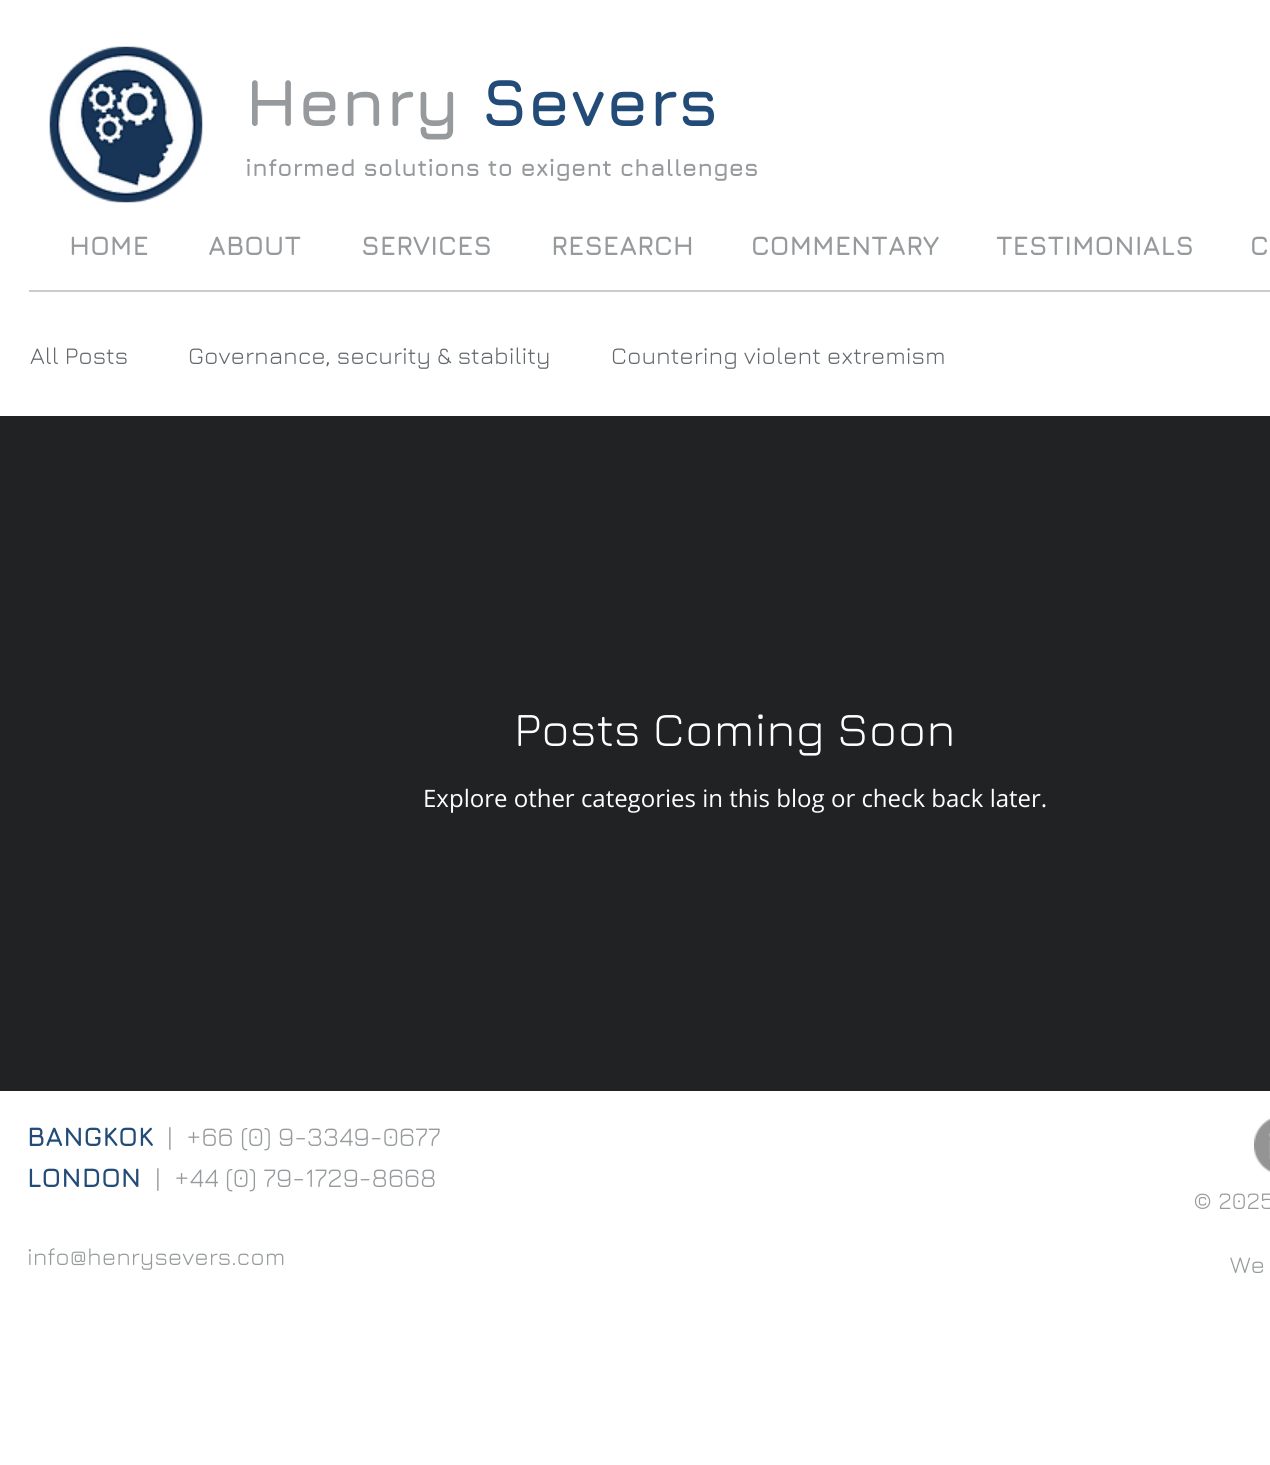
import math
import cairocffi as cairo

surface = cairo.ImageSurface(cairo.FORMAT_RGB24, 1270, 1465)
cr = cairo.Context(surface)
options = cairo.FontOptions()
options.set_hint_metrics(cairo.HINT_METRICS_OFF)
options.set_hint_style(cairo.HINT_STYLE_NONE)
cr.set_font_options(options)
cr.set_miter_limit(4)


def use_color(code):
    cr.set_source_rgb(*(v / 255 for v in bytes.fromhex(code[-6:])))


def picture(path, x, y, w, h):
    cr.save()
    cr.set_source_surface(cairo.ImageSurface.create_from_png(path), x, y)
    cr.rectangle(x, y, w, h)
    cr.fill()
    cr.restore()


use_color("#ffffff")
cr.paint()
picture("img1.png", 49, 46, 154, 157)
cr.select_font_face("Jura", cairo.FONT_SLANT_NORMAL, cairo.FONT_WEIGHT_BOLD)
cr.set_font_size(67.5)
use_color("#969a9c")
cr.move_to(245, 126)
cr.show_text("Henry")
use_color("#224c77")
cr.move_to(481, 126)
cr.show_text("Severs")
cr.set_font_size(24)
use_color("#969a9c")
cr.move_to(245, 176)
cr.show_text("informed solutions to exigent challenges")
cr.set_font_size(27)
cr.move_to(69, 255)
cr.show_text("HOME")
cr.move_to(208, 255)
cr.show_text("ABOUT")
cr.move_to(361, 255)
cr.show_text("SERVICES")
cr.move_to(551, 255)
cr.show_text("RESEARCH")
cr.move_to(751, 255)
cr.show_text("COMMENTARY")
cr.move_to(996, 255)
cr.show_text("TESTIMONIALS")
cr.move_to(1250, 255)
cr.show_text("C")
use_color("#cccccc")
cr.rectangle(29, 290, 1241, 2)
cr.fill()
use_color("#202223")
cr.rectangle(0, 416, 1270, 675)
cr.fill()
cr.select_font_face("Jura")
cr.set_font_size(24)
use_color("#62686b")
cr.move_to(30, 364)
cr.show_text("All Posts")
cr.move_to(188, 364)
cr.show_text("Governance, security & stability")
cr.move_to(611, 364)
cr.show_text("Countering violent extremism")
cr.set_font_size(48)
use_color("#ffffff")
cr.move_to(514, 746)
cr.show_text("Posts Coming Soon")
cr.select_font_face("Open Sans")
cr.set_font_size(24)
cr.move_to(423, 807)
cr.show_text("Explore other categories in this blog or check back later.")
cr.select_font_face("Jura", cairo.FONT_SLANT_NORMAL, cairo.FONT_WEIGHT_BOLD)
cr.set_font_size(27)
use_color("#224c77")
cr.move_to(27, 1146)
cr.show_text("BANGKOK")
cr.select_font_face("Jura")
use_color("#969a9c")
cr.move_to(167, 1146)
cr.show_text("|  +66 (0) 9-3349-0677")
cr.select_font_face("Jura", cairo.FONT_SLANT_NORMAL, cairo.FONT_WEIGHT_BOLD)
use_color("#224c77")
cr.move_to(27, 1187)
cr.show_text("LONDON")
cr.select_font_face("Jura")
use_color("#969a9c")
cr.move_to(155, 1187)
cr.show_text("|  +44 (0) 79-1729-8668")
cr.set_font_size(24)
cr.move_to(27, 1265)
cr.show_text("info@henrysevers.com")
picture("img2.png", 1254, 1118, 16, 54)
cr.move_to(1193, 1209)
cr.show_text("© 2025")
cr.move_to(1230, 1273)
cr.show_text("We")
surface.write_to_png("result.png")
